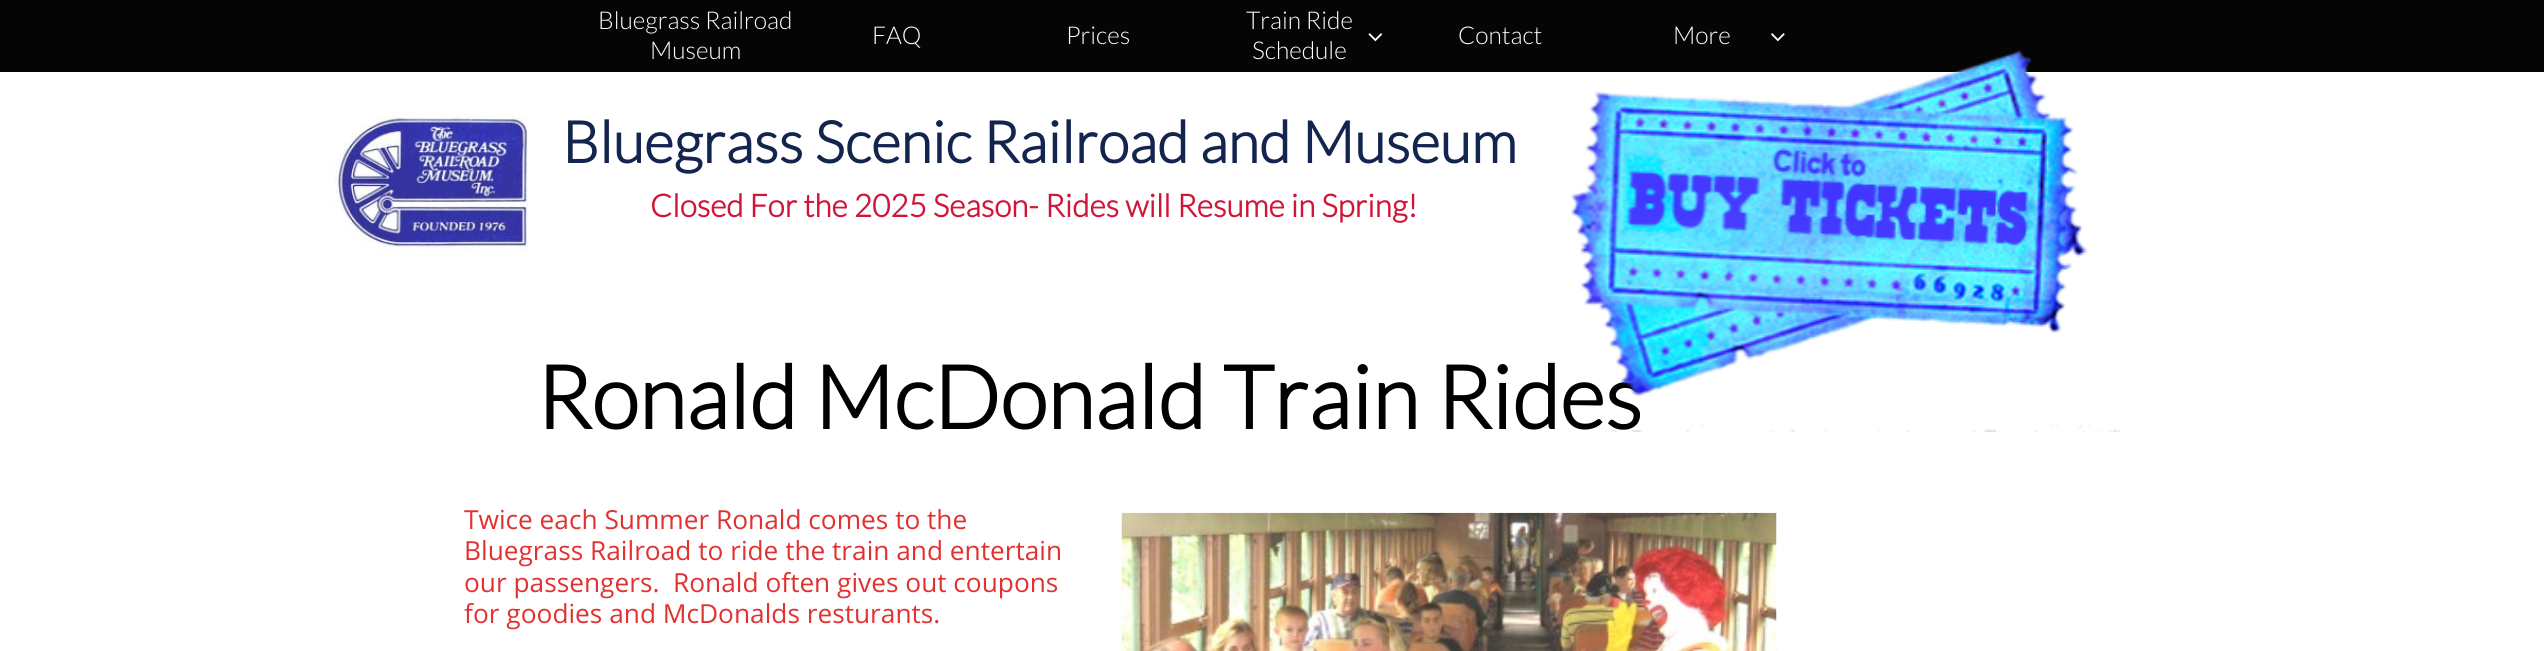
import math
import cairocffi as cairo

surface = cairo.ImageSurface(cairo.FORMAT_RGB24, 2544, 651)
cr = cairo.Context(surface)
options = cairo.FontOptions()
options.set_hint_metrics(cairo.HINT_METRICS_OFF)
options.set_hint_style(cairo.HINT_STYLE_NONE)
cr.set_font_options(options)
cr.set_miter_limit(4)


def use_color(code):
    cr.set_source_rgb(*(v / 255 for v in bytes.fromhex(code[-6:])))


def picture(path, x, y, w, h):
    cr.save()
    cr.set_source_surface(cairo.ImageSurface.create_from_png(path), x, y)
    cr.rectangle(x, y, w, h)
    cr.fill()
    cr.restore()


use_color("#ffffff")
cr.paint()
use_color("#050505")
cr.rectangle(0, 0, 2544, 72)
cr.fill()
cr.select_font_face("Lato Light")
cr.set_font_size(24.5)
use_color("#fefefe")
cr.move_to(598, 29)
cr.show_text("Bluegrass Railroad")
cr.move_to(650, 59)
cr.show_text("Museum")
cr.move_to(872, 44)
cr.show_text("FAQ")
cr.move_to(1066, 44)
cr.show_text("Prices")
cr.move_to(1246, 29)
cr.show_text("Train Ride")
cr.move_to(1252, 59)
cr.show_text("Schedule")
picture("img1.png", 1368, 33, 15, 9)
cr.move_to(1458, 44)
cr.show_text("Contact")
cr.move_to(1673, 44)
cr.show_text("More")
picture("img2.png", 1771, 33, 14, 9)
picture("img3.png", 326, 107, 203, 152)
cr.select_font_face("Lato", cairo.FONT_SLANT_NORMAL, cairo.FONT_WEIGHT_BOLD)
cr.set_font_size(57.75)
use_color("#13244e")
cr.move_to(562, 163)
cr.show_text("Bluegrass Scenic Railroad and Museum")
cr.set_font_size(87.5)
use_color("#000000")
cr.move_to(536, 429)
cr.show_text("Ronald McDonald Train Rides")
picture("img4.png", 1569, 50, 551, 382)
cr.set_font_size(31.5)
use_color("#d01638")
cr.move_to(650, 217)
cr.show_text("Closed For the 2025 Season- Rides will Resume in Spring!")
cr.select_font_face("Open Sans")
cr.set_font_size(26.25)
use_color("#e23131")
cr.move_to(464, 529)
cr.show_text("Twice each Summer Ronald comes to the")
cr.move_to(464, 560)
cr.show_text("Bluegrass Railroad to ride the train and entertain")
cr.move_to(464, 592)
cr.show_text("our passengers.  Ronald often gives out coupons")
cr.move_to(464, 623)
cr.show_text("for goodies and McDonalds resturants.")
picture("img5.png", 1121, 512, 656, 139)
surface.write_to_png("result.png")
